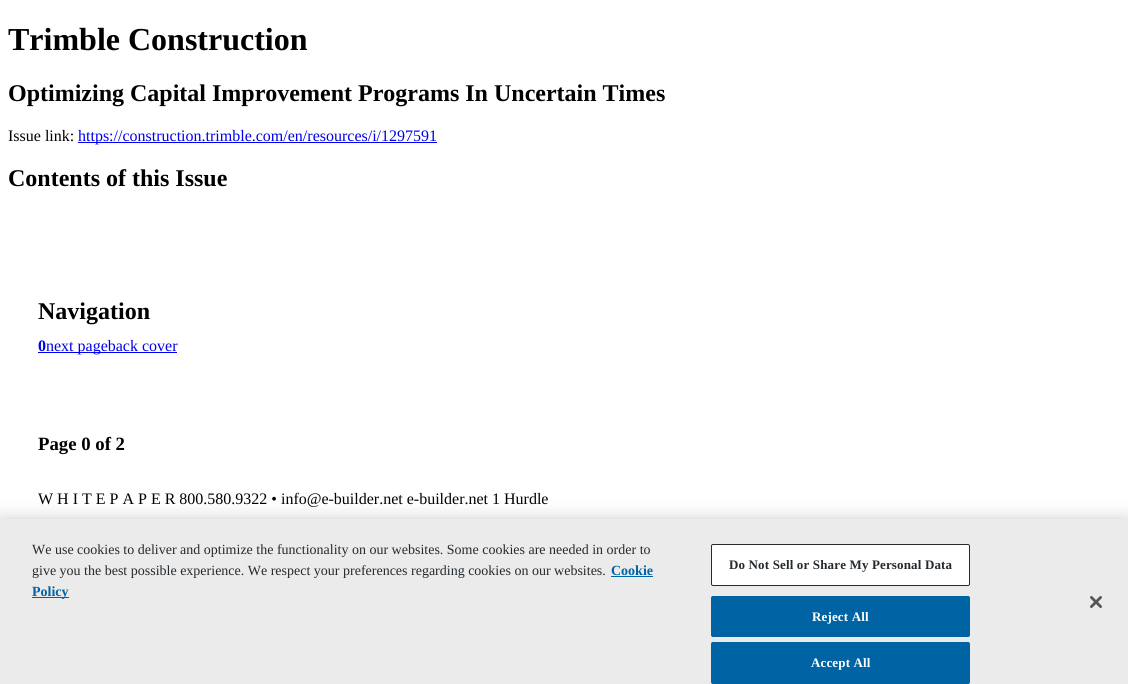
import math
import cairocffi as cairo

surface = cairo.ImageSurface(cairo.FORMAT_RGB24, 1128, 684)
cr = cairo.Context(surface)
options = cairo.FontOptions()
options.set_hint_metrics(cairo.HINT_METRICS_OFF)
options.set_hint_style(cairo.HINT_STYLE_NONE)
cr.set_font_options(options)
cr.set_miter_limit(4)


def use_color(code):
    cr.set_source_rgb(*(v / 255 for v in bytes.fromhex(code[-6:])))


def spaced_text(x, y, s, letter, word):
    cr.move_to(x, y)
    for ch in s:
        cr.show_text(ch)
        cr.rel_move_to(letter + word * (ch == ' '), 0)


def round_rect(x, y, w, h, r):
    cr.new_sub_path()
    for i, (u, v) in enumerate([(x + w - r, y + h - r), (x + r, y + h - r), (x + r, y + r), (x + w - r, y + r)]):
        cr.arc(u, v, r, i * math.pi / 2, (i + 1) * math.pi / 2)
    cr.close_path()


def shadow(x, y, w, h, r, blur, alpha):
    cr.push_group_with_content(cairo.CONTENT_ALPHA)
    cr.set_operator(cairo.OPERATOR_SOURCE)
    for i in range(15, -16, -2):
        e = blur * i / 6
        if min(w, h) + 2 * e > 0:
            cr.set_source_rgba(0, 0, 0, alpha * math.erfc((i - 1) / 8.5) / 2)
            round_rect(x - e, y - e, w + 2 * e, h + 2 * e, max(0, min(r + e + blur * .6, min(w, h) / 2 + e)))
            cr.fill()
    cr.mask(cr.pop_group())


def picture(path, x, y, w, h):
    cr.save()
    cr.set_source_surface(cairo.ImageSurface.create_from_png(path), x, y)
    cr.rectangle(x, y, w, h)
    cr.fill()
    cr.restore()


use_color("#ffffff")
cr.paint()
cr.select_font_face("Liberation Serif", cairo.FONT_SLANT_NORMAL, cairo.FONT_WEIGHT_BOLD)
cr.set_font_size(32)
use_color("#000000")
cr.move_to(8, 50)
cr.show_text("Trimble Construction")
cr.set_font_size(24)
cr.move_to(8, 101)
cr.show_text("Optimizing Capital Improvement Programs In Uncertain Times")
cr.select_font_face("Liberation Serif")
cr.set_font_size(16)
cr.move_to(8, 141)
cr.show_text("Issue link:")
use_color("#0000ee")
cr.rectangle(78, 142, 359, 1)
cr.fill()
cr.move_to(78, 141)
cr.show_text("https://construction.trimble.com/en/resources/i/1297591")
cr.select_font_face("Liberation Serif", cairo.FONT_SLANT_NORMAL, cairo.FONT_WEIGHT_BOLD)
cr.set_font_size(24)
use_color("#000000")
cr.move_to(8, 186)
cr.show_text("Contents of this Issue")
cr.move_to(38, 319)
cr.show_text("Navigation")
cr.set_font_size(16)
use_color("#0000ee")
cr.move_to(38, 351)
cr.show_text("0")
cr.rectangle(38, 352, 139, 1)
cr.fill()
cr.select_font_face("Liberation Serif")
cr.move_to(46, 351)
cr.show_text("next pageback cover")
cr.select_font_face("Liberation Serif", cairo.FONT_SLANT_NORMAL, cairo.FONT_WEIGHT_BOLD)
cr.set_font_size(18.75)
use_color("#000000")
cr.move_to(38, 450)
cr.show_text("Page 0 of 2")
cr.select_font_face("Liberation Serif")
cr.set_font_size(16)
cr.move_to(38, 504)
cr.show_text("W H I T E P A P E R 800.580.9322 • info@e-builder.net e-builder.net 1 Hurdle")
use_color("#000000")
shadow(0, 519, 1128, 165, 0, 9, 0.2)
use_color("#ebebeb")
cr.rectangle(0, 519, 1128, 165)
cr.fill()
cr.set_font_size(14)
use_color("#252a2e")
cr.move_to(32, 554)
cr.show_text("We use cookies to deliver and optimize the functionality on our websites. Some cookies are needed in order to")
cr.move_to(32, 575)
cr.show_text("give you the best possible experience. We respect your preferences regarding cookies on our websites.")
cr.select_font_face("Liberation Serif", cairo.FONT_SLANT_NORMAL, cairo.FONT_WEIGHT_BOLD)
use_color("#0063a3")
cr.move_to(611, 575)
cr.show_text("Cookie")
cr.rectangle(611, 576, 42, 1)
cr.fill()
cr.rectangle(32, 597, 37, 1)
cr.fill()
cr.move_to(32, 596)
cr.show_text("Policy")
use_color("#ffffff")
round_rect(711.5, 544.5, 258, 41, 1.5)
cr.fill_preserve()
use_color("#252a2e")
cr.set_line_width(1)
cr.stroke()
cr.set_font_size(13)
spaced_text(729, 569, "Do Not Sell or Share My Personal Data", 0.15, 0)
use_color("#0063a3")
round_rect(711.5, 596.5, 258, 40, 1.5)
cr.fill_preserve()
cr.stroke()
use_color("#ffffff")
spaced_text(812, 621, "Reject All", 0.15, 0)
use_color("#0063a3")
round_rect(711.5, 642.5, 258, 41, 1.5)
cr.fill_preserve()
cr.stroke()
use_color("#ffffff")
spaced_text(811, 667, "Accept All", 0.15, 0)
picture("img1.png", 1090, 596, 12, 12)
surface.write_to_png("result.png")
